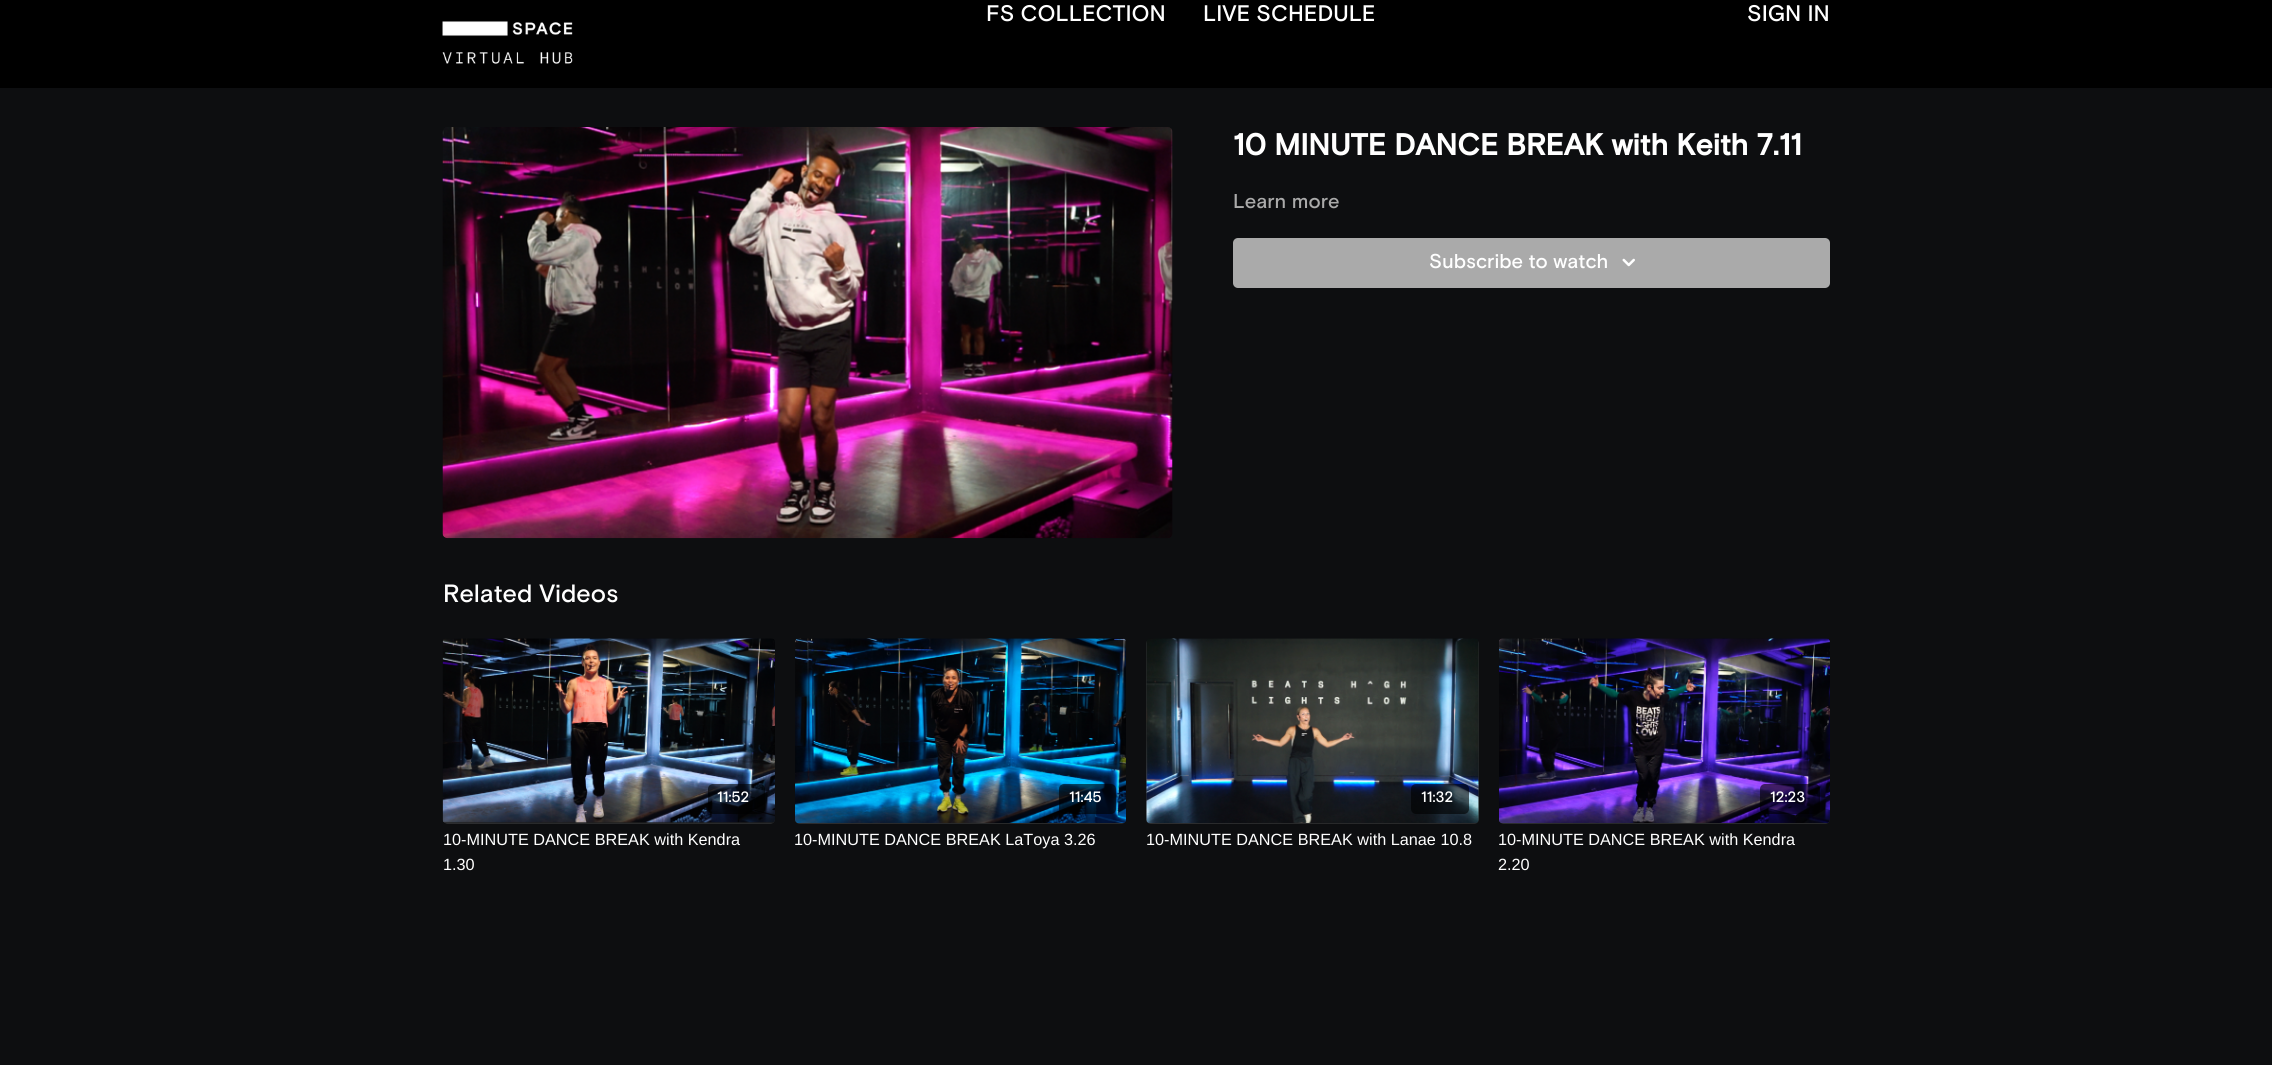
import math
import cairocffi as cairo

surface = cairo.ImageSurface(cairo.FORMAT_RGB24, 2272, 1065)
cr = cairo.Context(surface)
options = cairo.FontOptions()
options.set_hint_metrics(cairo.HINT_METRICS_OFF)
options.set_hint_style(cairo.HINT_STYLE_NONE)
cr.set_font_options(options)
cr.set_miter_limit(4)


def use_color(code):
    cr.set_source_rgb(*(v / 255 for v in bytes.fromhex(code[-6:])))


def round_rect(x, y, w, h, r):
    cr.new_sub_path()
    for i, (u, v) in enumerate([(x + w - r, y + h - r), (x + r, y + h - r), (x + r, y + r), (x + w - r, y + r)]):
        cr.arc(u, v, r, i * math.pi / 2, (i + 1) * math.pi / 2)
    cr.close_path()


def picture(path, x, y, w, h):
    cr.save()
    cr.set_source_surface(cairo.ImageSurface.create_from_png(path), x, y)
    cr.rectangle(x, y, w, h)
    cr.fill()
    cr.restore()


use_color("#0d0e10")
cr.paint()
use_color("#000000")
cr.rectangle(0, 0, 2272, 88)
cr.fill()
cr.select_font_face("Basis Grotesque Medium")
cr.set_font_size(22.5)
use_color("#ffffff")
cr.move_to(986, 21)
cr.show_text("FS COLLECTION")
cr.move_to(1203, 21)
cr.show_text("LIVE SCHEDULE")
cr.move_to(1747, 21)
cr.show_text("SIGN IN")
picture("img1.png", 442, 21, 131, 43)
picture("img2.png", 442, 127, 731, 412)
cr.select_font_face("Basis Grotesque", cairo.FONT_SLANT_NORMAL, cairo.FONT_WEIGHT_BOLD)
cr.set_font_size(30)
cr.move_to(1233, 155)
cr.show_text("10 MINUTE DANCE BREAK with Keith 7.11")
cr.select_font_face("Basis Grotesque Medium")
cr.set_font_size(20)
use_color("#aaaaaa")
cr.move_to(1233, 208)
cr.show_text("Learn more")
round_rect(1233, 238, 597, 50, 5)
cr.fill()
use_color("#ffffff")
cr.move_to(1429, 268)
cr.show_text("Subscribe to watch")
picture("img3.png", 1622, 258, 13, 9)
cr.set_font_size(25)
cr.move_to(443, 602)
cr.show_text("Related Videos")
gradient = cairo.LinearGradient(443, 731, 775, 731)
gradient.add_color_stop_rgba(0.08, 0.173, 0.176, 0.184, 1)
gradient.add_color_stop_rgba(0.18, 0.165, 0.169, 0.176, 1)
gradient.add_color_stop_rgba(0.33, 0.157, 0.161, 0.165, 1)
cr.set_source(gradient)
round_rect(443, 639, 332, 185, 5)
cr.fill()
picture("img4.png", 442, 638, 333, 185)
cr.set_source_rgba(0, 0, 0, 0.6)
round_rect(708, 784, 57, 30, 5)
cr.fill()
cr.set_font_size(15)
use_color("#ffffff")
cr.move_to(717, 802)
cr.show_text("11:52")
cr.select_font_face("Liberation Sans")
cr.set_font_size(16.25)
cr.move_to(443, 845)
cr.show_text("10-MINUTE DANCE BREAK with Kendra")
cr.move_to(443, 870)
cr.show_text("1.30")
gradient = cairo.LinearGradient(795, 731, 1126, 731)
gradient.add_color_stop_rgba(0.08, 0.173, 0.176, 0.184, 1)
gradient.add_color_stop_rgba(0.18, 0.165, 0.169, 0.176, 1)
gradient.add_color_stop_rgba(0.33, 0.157, 0.161, 0.165, 1)
cr.set_source(gradient)
round_rect(795, 639, 331, 185, 5)
cr.fill()
picture("img5.png", 795, 638, 331, 185)
cr.set_source_rgba(0, 0, 0, 0.6)
round_rect(1059, 784, 57, 30, 5)
cr.fill()
cr.select_font_face("Basis Grotesque Medium")
cr.set_font_size(15)
use_color("#ffffff")
cr.move_to(1069, 802)
cr.show_text("11:45")
cr.select_font_face("Liberation Sans")
cr.set_font_size(16.25)
cr.move_to(794, 845)
cr.show_text("10-MINUTE DANCE BREAK LaToya 3.26")
gradient = cairo.LinearGradient(1146, 731, 1479, 731)
gradient.add_color_stop_rgba(0.08, 0.173, 0.176, 0.184, 1)
gradient.add_color_stop_rgba(0.18, 0.165, 0.169, 0.176, 1)
gradient.add_color_stop_rgba(0.33, 0.157, 0.161, 0.165, 1)
cr.set_source(gradient)
round_rect(1146, 639, 333, 185, 5)
cr.fill()
picture("img6.png", 1146, 638, 333, 185)
cr.set_source_rgba(0, 0, 0, 0.6)
round_rect(1411, 784, 58, 30, 5)
cr.fill()
cr.select_font_face("Basis Grotesque Medium")
cr.set_font_size(15)
use_color("#ffffff")
cr.move_to(1421, 802)
cr.show_text("11:32")
cr.select_font_face("Liberation Sans")
cr.set_font_size(16.25)
cr.move_to(1146, 845)
cr.show_text("10-MINUTE DANCE BREAK with Lanae 10.8")
gradient = cairo.LinearGradient(1499, 731, 1830, 731)
gradient.add_color_stop_rgba(0.08, 0.173, 0.176, 0.184, 1)
gradient.add_color_stop_rgba(0.18, 0.165, 0.169, 0.176, 1)
gradient.add_color_stop_rgba(0.33, 0.157, 0.161, 0.165, 1)
cr.set_source(gradient)
round_rect(1499, 639, 331, 185, 5)
cr.fill()
picture("img7.png", 1499, 638, 331, 185)
cr.set_source_rgba(0, 0, 0, 0.6)
round_rect(1760, 784, 60, 30, 5)
cr.fill()
cr.select_font_face("Basis Grotesque Medium")
cr.set_font_size(15)
use_color("#ffffff")
cr.move_to(1770, 802)
cr.show_text("12:23")
cr.select_font_face("Liberation Sans")
cr.set_font_size(16.25)
cr.move_to(1498, 845)
cr.show_text("10-MINUTE DANCE BREAK with Kendra")
cr.move_to(1498, 870)
cr.show_text("2.20")
surface.write_to_png("result.png")
